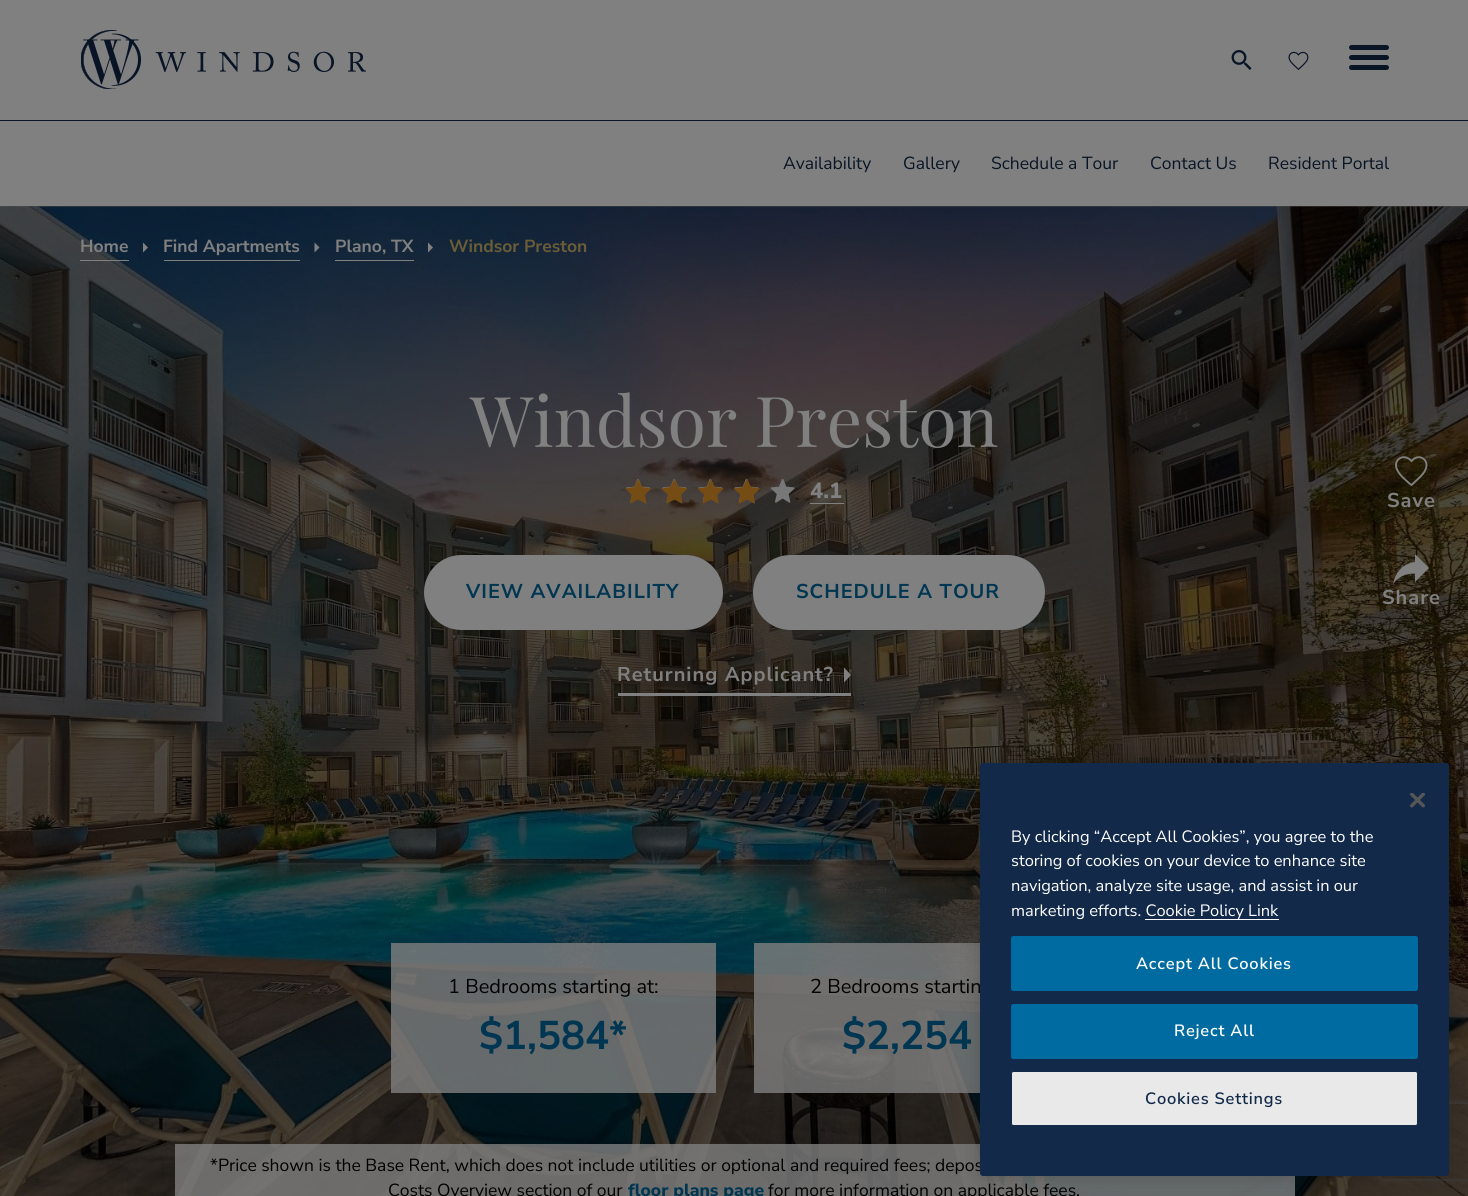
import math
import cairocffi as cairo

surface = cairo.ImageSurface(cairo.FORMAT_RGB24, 1468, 1196)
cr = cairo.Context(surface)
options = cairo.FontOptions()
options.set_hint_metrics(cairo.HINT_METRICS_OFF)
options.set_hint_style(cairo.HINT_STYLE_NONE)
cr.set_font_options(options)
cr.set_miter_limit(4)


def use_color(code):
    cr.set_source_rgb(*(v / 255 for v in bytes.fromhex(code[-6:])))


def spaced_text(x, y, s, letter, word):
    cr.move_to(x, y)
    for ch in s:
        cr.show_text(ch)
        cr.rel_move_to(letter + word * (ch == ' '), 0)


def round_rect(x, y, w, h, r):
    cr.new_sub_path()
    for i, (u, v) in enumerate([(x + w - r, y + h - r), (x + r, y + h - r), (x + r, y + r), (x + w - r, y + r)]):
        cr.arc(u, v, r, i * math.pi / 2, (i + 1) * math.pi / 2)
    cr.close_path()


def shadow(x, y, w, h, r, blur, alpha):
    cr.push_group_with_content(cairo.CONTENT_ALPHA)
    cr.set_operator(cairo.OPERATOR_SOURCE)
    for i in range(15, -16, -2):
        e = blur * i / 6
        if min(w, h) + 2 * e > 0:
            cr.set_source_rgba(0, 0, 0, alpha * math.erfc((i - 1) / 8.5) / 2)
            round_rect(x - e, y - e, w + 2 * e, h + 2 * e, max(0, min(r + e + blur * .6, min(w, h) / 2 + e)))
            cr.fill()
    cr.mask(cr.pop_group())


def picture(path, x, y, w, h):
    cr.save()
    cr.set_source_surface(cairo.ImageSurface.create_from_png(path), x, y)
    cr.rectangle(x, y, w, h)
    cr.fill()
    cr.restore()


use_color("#808080")
cr.paint()
use_color("#4d4d4d")
cr.rectangle(0, 206, 1468, 1)
cr.fill()
picture("img1.png", 81, 30, 285, 59)
picture("img2.png", 1231, 50, 21, 20)
picture("img3.png", 1288, 51, 21, 19)
use_color("#091525")
round_rect(1349, 55, 40, 5, 2.5)
cr.fill()
round_rect(1349, 45, 40, 5, 2.5)
cr.fill()
round_rect(1349, 65, 40, 5, 2.5)
cr.fill()
cr.rectangle(0, 120, 1468, 1)
cr.fill()
cr.select_font_face("Nunito Sans")
cr.set_font_size(17.5)
cr.move_to(783, 169)
cr.show_text("Availability")
cr.move_to(903, 169)
cr.show_text("Gallery")
cr.move_to(991, 169)
cr.show_text("Schedule a Tour")
cr.move_to(1150, 169)
cr.show_text("Contact Us")
cr.move_to(1268, 169)
cr.show_text("Resident Portal")
picture("img4.png", 0, 206, 1468, 990)
cr.select_font_face("Nunito Sans", cairo.FONT_SLANT_NORMAL, cairo.FONT_WEIGHT_BOLD)
use_color("#808080")
cr.move_to(80, 252)
cr.show_text("Home")
cr.new_path()
cr.move_to(143, 252.5)
cr.line_to(143, 242.5)
cr.line_to(148, 247.5)
cr.close_path()
cr.fill()
cr.rectangle(80, 260, 49, 1)
cr.fill()
cr.move_to(163, 252)
cr.show_text("Find Apartments")
cr.new_path()
cr.move_to(314.5, 252.5)
cr.line_to(314.5, 242.5)
cr.line_to(319.5, 247.5)
cr.close_path()
cr.fill()
cr.rectangle(164, 260, 136, 1)
cr.fill()
cr.move_to(335, 252)
cr.show_text("Plano, TX")
cr.new_path()
cr.move_to(428, 252.5)
cr.line_to(428, 242.5)
cr.line_to(433, 247.5)
cr.close_path()
cr.fill()
cr.rectangle(335, 260, 79, 1)
cr.fill()
use_color("#6a5d37")
cr.move_to(449, 252)
cr.show_text("Windsor Preston")
cr.select_font_face("Playfair Display")
cr.set_font_size(70)
use_color("#808080")
cr.move_to(470, 447)
cr.show_text("Windsor Preston")
picture("img5.png", 626, 478, 169, 25)
picture("img6.png", 625, 479, 135, 25)
cr.select_font_face("Nunito Sans ExtraBold")
cr.set_font_size(22)
cr.move_to(810, 498)
cr.show_text("4.1")
cr.rectangle(810, 503, 34, 1)
cr.fill()
round_rect(425.5, 556.5, 296, 72, 36)
cr.fill_preserve()
cr.set_line_width(3)
cr.stroke()
cr.select_font_face("Nunito Sans", cairo.FONT_SLANT_NORMAL, cairo.FONT_WEIGHT_BOLD)
cr.set_font_size(20)
use_color("#003651")
spaced_text(466, 598, "VIEW AVAILABILITY", 1, 0)
use_color("#808080")
round_rect(754.5, 556.5, 289, 72, 36)
cr.fill_preserve()
cr.stroke()
use_color("#003651")
spaced_text(796, 598, "SCHEDULE A TOUR", 1, 0)
use_color("#808080")
spaced_text(617, 681, "Returning Applicant?", 1, 0)
cr.new_path()
cr.move_to(844, 682.5)
cr.line_to(851, 675)
cr.line_to(844, 667.5)
cr.close_path()
cr.fill()
cr.rectangle(618, 693, 233, 3)
cr.fill()
cr.set_source_rgba(0.502, 0.502, 0.502, 0.8)
cr.rectangle(391, 943, 325, 150)
cr.fill()
cr.select_font_face("Nunito Sans")
use_color("#000000")
cr.move_to(448, 993)
cr.show_text("1 Bedrooms starting at:")
cr.select_font_face("Nunito Sans", cairo.FONT_SLANT_NORMAL, cairo.FONT_WEIGHT_BOLD)
cr.set_font_size(40)
use_color("#003651")
cr.move_to(479, 1049)
cr.show_text("$1,584*")
cr.set_source_rgba(0.502, 0.502, 0.502, 0.8)
cr.rectangle(754, 943, 226, 150)
cr.fill()
cr.select_font_face("Nunito Sans")
cr.set_font_size(20)
use_color("#000000")
cr.move_to(810, 993)
cr.show_text("2 Bedrooms startin")
cr.select_font_face("Nunito Sans", cairo.FONT_SLANT_NORMAL, cairo.FONT_WEIGHT_BOLD)
cr.set_font_size(40)
use_color("#003651")
cr.move_to(842, 1049)
cr.show_text("$2,254")
cr.set_source_rgba(0.502, 0.502, 0.502, 0.8)
cr.rectangle(175, 1144, 1120, 52)
cr.fill()
cr.select_font_face("Nunito Sans")
cr.set_font_size(17.5)
use_color("#000000")
cr.move_to(210, 1171)
cr.show_text("*Price shown is the Base Rent, which does not include utilities or optional and required fees; depos")
cr.move_to(388, 1196)
cr.show_text("Costs Overview section of our")
cr.select_font_face("Nunito Sans ExtraBold")
use_color("#003651")
cr.move_to(628, 1196)
cr.show_text("floor plans page")
cr.select_font_face("Nunito Sans")
use_color("#000000")
cr.move_to(768, 1196)
cr.show_text("for more information on applicable fees.")
cr.new_path()
cr.move_to(1409.5, 483.5)
cr.curve_to(1405, 479.5, 1399.5, 475, 1397, 469.5)
cr.curve_to(1392.5, 459.5, 1404, 452.5, 1411.5, 461)
cr.curve_to(1418.5, 452.5, 1430, 459.5, 1425.5, 469.5)
cr.curve_to(1423, 475.5, 1416, 480.5, 1411.5, 485)
cr.close_path()
cr.move_to(1409.5, 483.5)
cr.curve_to(1405, 479.5, 1399.5, 475, 1397, 469.5)
cr.curve_to(1392.5, 459.5, 1404, 452.5, 1411.5, 461)
cr.curve_to(1418.5, 452.5, 1430, 459.5, 1425.5, 469.5)
cr.curve_to(1423, 475.5, 1416, 480.5, 1411.5, 485)
cr.close_path()
use_color("#808080")
cr.set_line_width(1.9)
cr.stroke()
cr.select_font_face("Nunito Sans", cairo.FONT_SLANT_NORMAL, cairo.FONT_WEIGHT_BOLD)
cr.set_font_size(20)
spaced_text(1387, 507, "Save", 1, 0)
spaced_text(1382, 604, "Share", 1, 0)
cr.new_path()
cr.move_to(1429, 568)
cr.line_to(1415, 554)
cr.line_to(1415, 562)
cr.curve_to(1401, 564, 1395, 574, 1393, 584)
cr.curve_to(1398, 577, 1405, 573.5, 1415, 573.5)
cr.line_to(1415, 582)
cr.close_path()
cr.fill()
use_color("#000000")
shadow(980, 763, 469, 413, 3, 11, 0.2)
cr.save()
cr.set_fill_rule(cairo.FILL_RULE_EVEN_ODD)
cr.new_path()
cr.move_to(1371, 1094)
cr.line_to(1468, 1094)
cr.line_to(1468, 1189)
cr.line_to(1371, 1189)
cr.close_path()
cr.move_to(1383.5, 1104)
cr.line_to(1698.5, 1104)
cr.curve_to(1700, 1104, 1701, 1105, 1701, 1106.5)
cr.line_to(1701, 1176.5)
cr.curve_to(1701, 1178, 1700, 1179, 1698.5, 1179)
cr.line_to(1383.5, 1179)
cr.curve_to(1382, 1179, 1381, 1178, 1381, 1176.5)
cr.line_to(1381, 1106.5)
cr.curve_to(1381, 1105, 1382, 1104, 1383.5, 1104)
cr.close_path()
cr.clip()
use_color("#404040")
shadow(1381, 1104, 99, 75, 2.5, 3, 1)
cr.restore()
use_color("#12294a")
round_rect(980, 763, 469, 413, 3)
cr.fill()
picture("img7.png", 1410, 793, 15, 15)
cr.select_font_face("Nunito Sans")
cr.set_font_size(16.4)
use_color("#ffffff")
cr.move_to(1011, 842)
cr.show_text("By clicking “Accept All Cookies”, you agree to the")
cr.move_to(1011, 866)
cr.show_text("storing of cookies on your device to enhance site")
cr.move_to(1011, 891)
cr.show_text("navigation, analyze site usage, and assist in our")
cr.move_to(1011, 916)
cr.show_text("marketing efforts. Cookie Policy Link")
cr.rectangle(1145, 919, 134, 1)
cr.fill()
use_color("#006ba1")
round_rect(1011.5, 936.5, 406, 54, 2)
cr.fill_preserve()
cr.set_line_width(1)
cr.stroke()
cr.select_font_face("Nunito Sans SemiBold")
use_color("#ffffff")
spaced_text(1136, 969, "Accept All Cookies", 0.8, 0)
use_color("#006ba1")
round_rect(1011.5, 1004.5, 406, 54, 2)
cr.fill_preserve()
cr.stroke()
use_color("#ffffff")
spaced_text(1174, 1036, "Reject All", 0.8, 0)
use_color("#e9e9e9")
round_rect(1011.5, 1071.5, 406, 54, 2)
cr.fill_preserve()
use_color("#12294a")
cr.stroke()
spaced_text(1145, 1104, "Cookies Settings", 0.8, 0)
surface.write_to_png("result.png")
